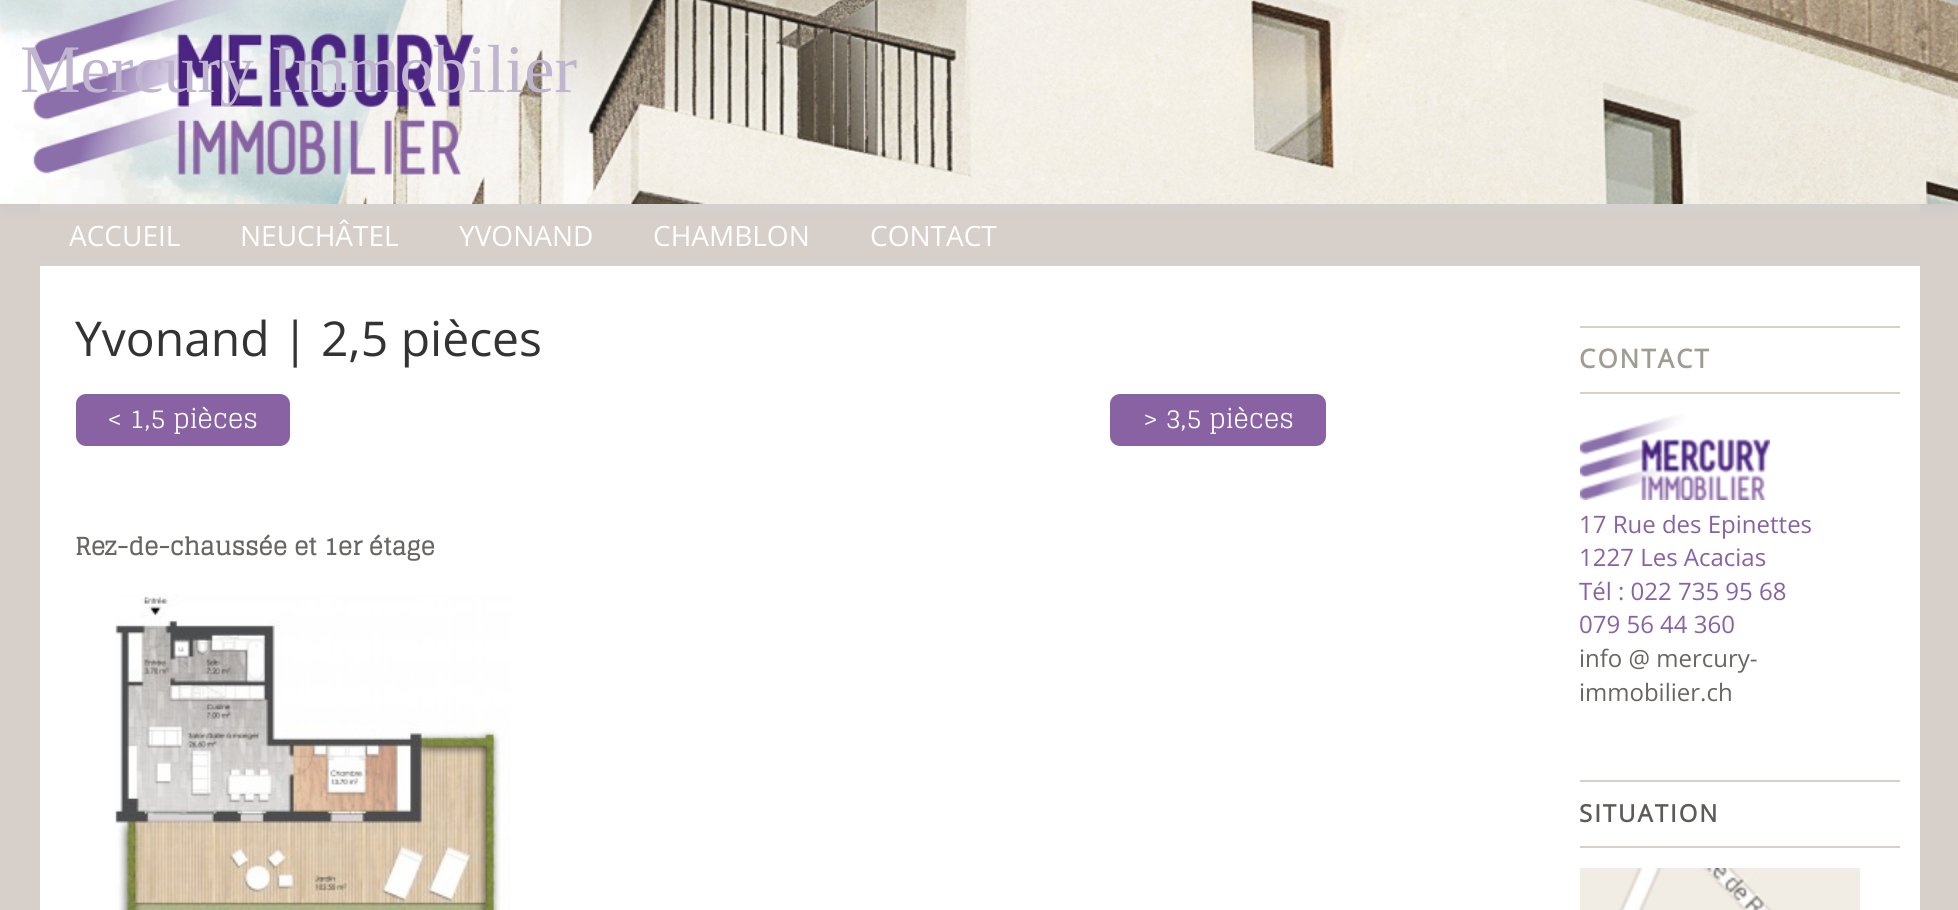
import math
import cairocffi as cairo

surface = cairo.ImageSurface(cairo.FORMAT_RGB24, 1958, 910)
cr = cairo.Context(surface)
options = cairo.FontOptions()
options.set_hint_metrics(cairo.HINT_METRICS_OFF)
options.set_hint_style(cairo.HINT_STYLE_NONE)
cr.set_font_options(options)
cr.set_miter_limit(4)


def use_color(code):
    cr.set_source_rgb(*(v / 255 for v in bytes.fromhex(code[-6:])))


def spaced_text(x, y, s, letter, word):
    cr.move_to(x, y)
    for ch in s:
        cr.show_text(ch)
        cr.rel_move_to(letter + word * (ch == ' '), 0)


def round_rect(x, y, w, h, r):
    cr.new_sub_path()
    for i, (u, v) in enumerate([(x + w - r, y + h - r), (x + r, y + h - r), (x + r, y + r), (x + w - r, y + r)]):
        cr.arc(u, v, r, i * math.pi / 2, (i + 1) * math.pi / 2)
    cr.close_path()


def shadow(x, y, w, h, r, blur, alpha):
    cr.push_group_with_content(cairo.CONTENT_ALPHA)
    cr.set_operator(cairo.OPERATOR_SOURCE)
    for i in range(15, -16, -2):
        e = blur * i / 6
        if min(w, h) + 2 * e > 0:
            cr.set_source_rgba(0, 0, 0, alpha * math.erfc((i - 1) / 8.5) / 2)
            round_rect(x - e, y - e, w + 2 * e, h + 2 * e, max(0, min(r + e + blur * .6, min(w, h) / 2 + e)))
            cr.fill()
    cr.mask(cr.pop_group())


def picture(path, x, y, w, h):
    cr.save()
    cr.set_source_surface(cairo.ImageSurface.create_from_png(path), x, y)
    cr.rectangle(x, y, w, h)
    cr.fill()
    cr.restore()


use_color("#d7cfca")
cr.paint()
use_color("#c7c7c7")
shadow(2, -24, 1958, 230, 0, 8, 1)
picture("img1.png", 0, 0, 1958, 204)
cr.select_font_face("Liberation Serif")
cr.set_font_size(68)
use_color("#c0b5ce")
cr.move_to(20, 92)
cr.show_text("Mercury Immobilier")
use_color("#ffffff")
cr.rectangle(40, 266, 1880, 644)
cr.fill()
use_color("#d7cfca")
cr.rectangle(40, 210, 1880, 4)
cr.fill()
use_color("#d4d1ce")
cr.rectangle(40, 204, 1880, 6)
cr.fill()
cr.rectangle(40, 260, 1880, 6)
cr.fill()
cr.select_font_face("Open Sans")
cr.set_font_size(28)
use_color("#ffffff")
cr.move_to(69, 246)
cr.show_text("ACCUEIL")
cr.move_to(240, 246)
cr.show_text("NEUCHÂTEL")
cr.move_to(459, 246)
cr.show_text("YVONAND")
cr.move_to(653, 246)
cr.show_text("CHAMBLON")
cr.move_to(870, 246)
cr.show_text("CONTACT")
cr.set_font_size(48)
use_color("#333333")
cr.move_to(75, 356)
cr.show_text("Yvonand | 2,5 pièces")
use_color("#8862a2")
round_rect(76, 394, 214, 52, 10)
cr.fill()
cr.select_font_face("Glegoo")
cr.set_font_size(26)
use_color("#ffffff")
cr.move_to(107, 428)
cr.show_text("< 1,5 pièces")
use_color("#8862a2")
round_rect(1110, 394, 216, 52, 10)
cr.fill()
use_color("#ffffff")
cr.move_to(1143, 428)
cr.show_text("> 3,5 pièces")
cr.select_font_face("Glegoo", cairo.FONT_SLANT_NORMAL, cairo.FONT_WEIGHT_BOLD)
cr.set_font_size(24)
use_color("#686662")
cr.move_to(75, 555)
cr.show_text("Rez-de-chaussée et 1er étage")
picture("img2.png", 115, 594, 396, 316)
use_color("#d7cfca")
cr.rectangle(1580, 326, 320, 2)
cr.fill()
cr.rectangle(1580, 392, 320, 2)
cr.fill()
cr.select_font_face("Open Sans", cairo.FONT_SLANT_NORMAL, cairo.FONT_WEIGHT_BOLD)
cr.set_font_size(26)
use_color("#a09c92")
spaced_text(1579, 368, "CONTACT", 2, 0)
picture("img3.png", 1580, 414, 190, 86)
cr.select_font_face("Open Sans")
cr.set_font_size(24)
use_color("#8862a2")
cr.move_to(1579, 533)
cr.show_text("17 Rue des Epinettes")
cr.move_to(1579, 566)
cr.show_text("1227 Les Acacias")
cr.move_to(1579, 600)
cr.show_text("Tél : 022 735 95 68")
cr.move_to(1579, 633)
cr.show_text("079 56 44 360")
use_color("#686662")
cr.move_to(1579, 667)
cr.show_text("info @ mercury-")
cr.move_to(1579, 701)
cr.show_text("immobilier.ch")
use_color("#d7cfca")
cr.rectangle(1580, 780, 320, 2)
cr.fill()
cr.rectangle(1580, 846, 320, 2)
cr.fill()
cr.select_font_face("Open Sans", cairo.FONT_SLANT_NORMAL, cairo.FONT_WEIGHT_BOLD)
use_color("#5d5b58")
spaced_text(1579, 822, "SITUATION", 2, 0)
picture("img4.png", 1580, 868, 280, 42)
surface.write_to_png("result.png")
